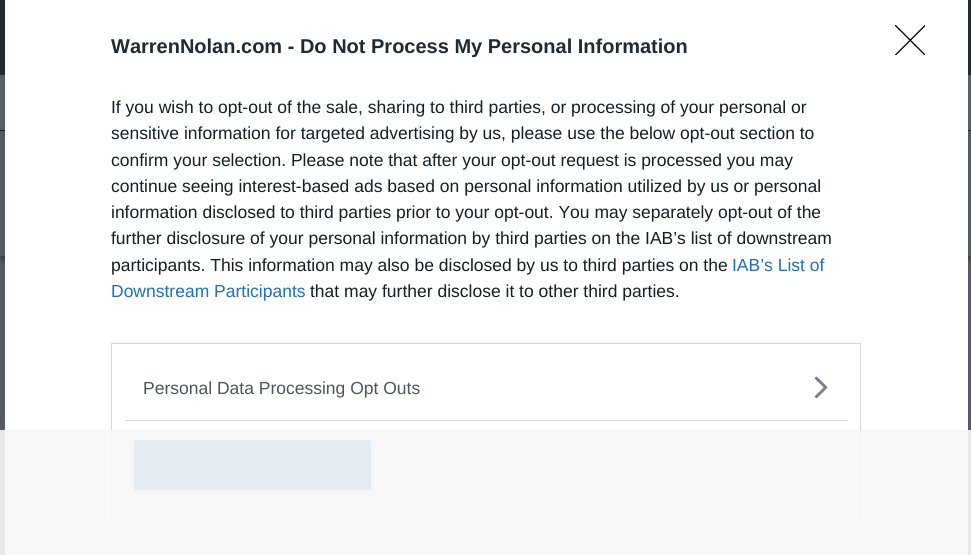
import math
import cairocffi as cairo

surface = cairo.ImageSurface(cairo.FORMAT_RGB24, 971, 555)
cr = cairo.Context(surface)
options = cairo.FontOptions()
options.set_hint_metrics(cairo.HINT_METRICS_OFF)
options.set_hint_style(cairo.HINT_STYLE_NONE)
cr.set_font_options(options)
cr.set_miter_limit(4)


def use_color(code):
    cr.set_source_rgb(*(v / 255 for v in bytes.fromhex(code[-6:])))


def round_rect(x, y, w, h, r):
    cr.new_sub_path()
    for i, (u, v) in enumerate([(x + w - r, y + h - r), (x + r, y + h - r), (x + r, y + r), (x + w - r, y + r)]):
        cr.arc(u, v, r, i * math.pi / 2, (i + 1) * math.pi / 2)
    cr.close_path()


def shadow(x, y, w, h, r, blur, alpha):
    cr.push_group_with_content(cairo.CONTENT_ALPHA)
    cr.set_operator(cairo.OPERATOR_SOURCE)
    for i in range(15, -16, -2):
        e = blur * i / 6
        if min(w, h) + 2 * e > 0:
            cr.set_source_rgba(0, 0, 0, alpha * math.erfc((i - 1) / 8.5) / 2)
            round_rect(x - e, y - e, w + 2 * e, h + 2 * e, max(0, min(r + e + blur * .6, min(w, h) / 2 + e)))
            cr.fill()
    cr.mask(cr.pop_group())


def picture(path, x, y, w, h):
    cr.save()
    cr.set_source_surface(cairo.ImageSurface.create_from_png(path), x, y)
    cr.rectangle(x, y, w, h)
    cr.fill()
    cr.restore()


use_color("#555b66")
cr.paint()
use_color("#242a32")
cr.rectangle(0, 0, 971, 75)
cr.fill()
use_color("#595f67")
cr.rectangle(0, 75, 971, 55)
cr.fill()
use_color("#393f47")
shadow(0, 134, 971, 126, 0, 2, 1)
use_color("#555b63")
cr.rectangle(0, 131, 971, 125)
cr.fill()
use_color("#191f27")
cr.rectangle(0, 130, 971, 1)
cr.fill()
use_color("#ffffff")
cr.rectangle(5, 0, 963, 555)
cr.fill()
cr.select_font_face("Liberation Sans", cairo.FONT_SLANT_NORMAL, cairo.FONT_WEIGHT_BOLD)
cr.set_font_size(20)
use_color("#212934")
cr.move_to(111, 53)
cr.show_text("WarrenNolan.com - Do Not Process My Personal Information")
cr.select_font_face("Liberation Sans")
cr.set_font_size(17.5)
use_color("#141e23")
cr.move_to(111, 113)
cr.show_text("If you wish to opt-out of the sale, sharing to third parties, or processing of your personal or")
cr.move_to(111, 139)
cr.show_text("sensitive information for targeted advertising by us, please use the below opt-out section to")
cr.move_to(111, 166)
cr.show_text("confirm your selection. Please note that after your opt-out request is processed you may")
cr.move_to(111, 192)
cr.show_text("continue seeing interest-based ads based on personal information utilized by us or personal")
cr.move_to(111, 218)
cr.show_text("information disclosed to third parties prior to your opt-out. You may separately opt-out of the")
cr.move_to(111, 244)
cr.show_text("further disclosure of your personal information by third parties on the IAB’s list of downstream")
cr.move_to(111, 271)
cr.show_text("participants. This information may also be disclosed by us to third parties on the")
use_color("#206dc5")
cr.move_to(732, 271)
cr.show_text("IAB’s List of")
cr.move_to(111, 297)
cr.show_text("Downstream Participants")
use_color("#141e23")
cr.move_to(310, 297)
cr.show_text("that may further disclose it to other third parties.")
cr.rectangle(111.5, 343.5, 749, 175)
use_color("#d8d8d8")
cr.set_line_width(1)
cr.stroke()
cr.rectangle(125, 420, 723, 1)
cr.fill()
use_color("#4d545d")
cr.move_to(143, 394)
cr.show_text("Personal Data Processing Opt Outs")
picture("img1.png", 814, 376, 14, 23)
use_color("#000000")
shadow(133, 440, 240, 53, 4, 0.5, 0.1)
use_color("#206dc5")
round_rect(134, 440, 237, 50, 2.5)
cr.fill()
cr.save()
cr.rectangle(895, 25, 30, 30)
cr.clip()
cr.new_path()
cr.move_to(895.5, 25.5)
cr.line_to(925, 55)
cr.move_to(925, 25.5)
cr.line_to(895.5, 55)
use_color("#000000")
cr.set_line_width(1.3)
cr.set_line_cap(cairo.LINE_CAP_ROUND)
cr.set_line_join(cairo.LINE_JOIN_ROUND)
cr.stroke()
cr.restore()
cr.set_source_rgba(0.969, 0.969, 0.969, 0.9)
cr.rectangle(0, 430, 971, 125)
cr.fill()
surface.write_to_png("result.png")
